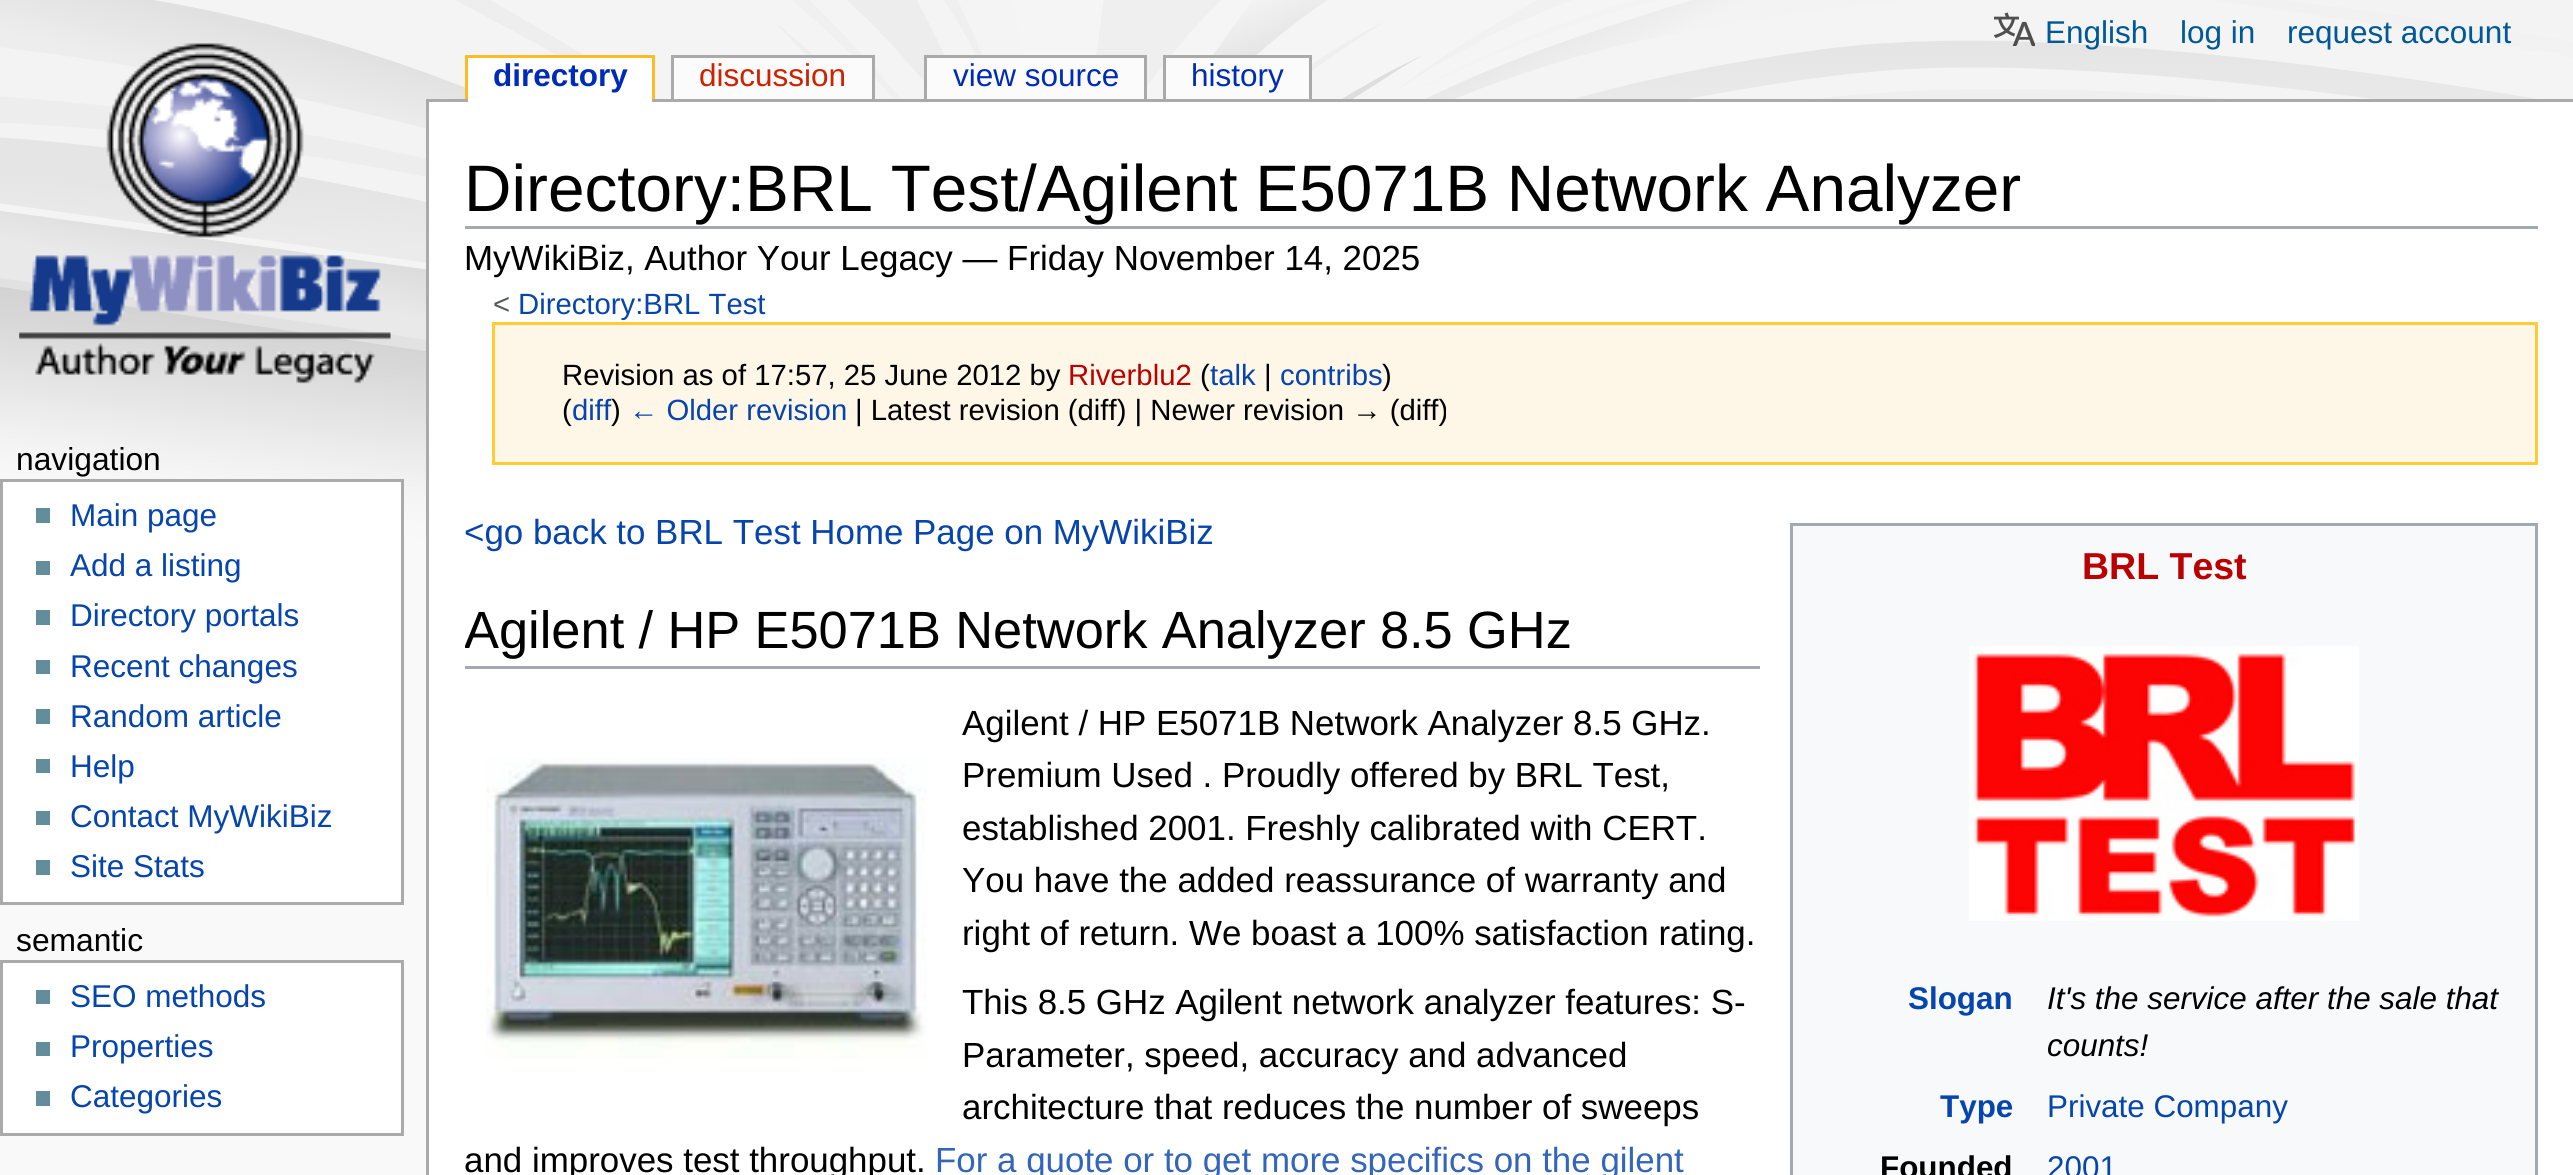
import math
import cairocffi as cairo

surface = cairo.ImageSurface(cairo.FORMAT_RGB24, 2573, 1175)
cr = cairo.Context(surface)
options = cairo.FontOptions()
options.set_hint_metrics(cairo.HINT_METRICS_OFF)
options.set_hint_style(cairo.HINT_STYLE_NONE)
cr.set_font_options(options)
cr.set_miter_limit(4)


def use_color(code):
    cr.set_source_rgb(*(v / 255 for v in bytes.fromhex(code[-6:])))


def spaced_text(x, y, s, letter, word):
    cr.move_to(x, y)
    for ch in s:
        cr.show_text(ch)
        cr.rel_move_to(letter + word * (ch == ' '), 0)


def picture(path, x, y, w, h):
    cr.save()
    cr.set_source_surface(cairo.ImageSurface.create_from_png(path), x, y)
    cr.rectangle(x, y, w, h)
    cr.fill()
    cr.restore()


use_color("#f9f9f9")
cr.paint()
picture("img1.png", 0, 0, 2573, 577)
picture("img2.png", 1994, 12, 41, 35)
cr.select_font_face("Liberation Sans")
cr.set_font_size(31.5)
use_color("#005896")
cr.move_to(2045, 43)
cr.show_text("English")
cr.move_to(2180, 43)
cr.show_text("log in")
cr.move_to(2287, 43)
cr.show_text("request account")
picture("img3.png", 19, 43, 372, 341)
use_color("#aaaaaa")
cr.rectangle(426, 99, 2147, 3)
cr.fill()
use_color("#ffffff")
cr.rectangle(468, 58, 184, 44)
cr.fill()
cr.select_font_face("Liberation Sans", cairo.FONT_SLANT_NORMAL, cairo.FONT_WEIGHT_BOLD)
use_color("#002bb8")
cr.move_to(493, 86)
cr.show_text("directory")
use_color("#fabd23")
cr.rectangle(465, 55, 190, 3)
cr.fill()
cr.rectangle(652, 55, 3, 44)
cr.fill()
cr.rectangle(465, 55, 3, 44)
cr.fill()
use_color("#fbfbfb")
cr.rectangle(674, 58, 198, 41)
cr.fill()
cr.select_font_face("Liberation Sans")
use_color("#cc2200")
cr.move_to(699, 86)
cr.show_text("discussion")
use_color("#aaaaaa")
cr.rectangle(671, 55, 204, 3)
cr.fill()
cr.rectangle(872, 55, 3, 44)
cr.fill()
cr.rectangle(671, 55, 3, 44)
cr.fill()
use_color("#fbfbfb")
cr.rectangle(927, 58, 217, 41)
cr.fill()
use_color("#002bb8")
cr.move_to(953, 86)
cr.show_text("view source")
use_color("#aaaaaa")
cr.rectangle(924, 55, 223, 3)
cr.fill()
cr.rectangle(1144, 55, 3, 44)
cr.fill()
cr.rectangle(924, 55, 3, 44)
cr.fill()
use_color("#fbfbfb")
cr.rectangle(1166, 58, 143, 41)
cr.fill()
use_color("#002bb8")
cr.move_to(1191, 86)
cr.show_text("history")
use_color("#aaaaaa")
cr.rectangle(1163, 55, 149, 3)
cr.fill()
cr.rectangle(1309, 55, 3, 44)
cr.fill()
cr.rectangle(1163, 55, 3, 44)
cr.fill()
cr.set_font_size(31.75)
use_color("#000000")
cr.move_to(16, 470)
cr.show_text("navigation")
use_color("#ffffff")
cr.rectangle(1.5, 480.5, 401, 423)
cr.fill_preserve()
use_color("#aaaaaa")
cr.set_line_width(3)
cr.stroke()
use_color("#638c9c")
cr.rectangle(36, 508, 14, 15)
cr.fill()
cr.set_font_size(31.5)
use_color("#0645ad")
cr.move_to(70, 526)
cr.show_text("Main page")
use_color("#638c9c")
cr.rectangle(36, 561, 14, 14)
cr.fill()
use_color("#0645ad")
cr.move_to(70, 576)
cr.show_text("Add a listing")
use_color("#638c9c")
cr.rectangle(36, 610, 14, 15)
cr.fill()
use_color("#0645ad")
cr.move_to(70, 626)
cr.show_text("Directory portals")
use_color("#638c9c")
cr.rectangle(36, 660, 14, 14)
cr.fill()
use_color("#0645ad")
cr.move_to(70, 677)
cr.show_text("Recent changes")
use_color("#638c9c")
cr.rectangle(36, 709, 14, 15)
cr.fill()
use_color("#0645ad")
cr.move_to(70, 727)
cr.show_text("Random article")
use_color("#638c9c")
cr.rectangle(36, 759, 14, 14)
cr.fill()
use_color("#0645ad")
cr.move_to(70, 777)
cr.show_text("Help")
use_color("#638c9c")
cr.rectangle(36, 811, 14, 14)
cr.fill()
use_color("#0645ad")
cr.move_to(70, 827)
cr.show_text("Contact MyWikiBiz")
use_color("#638c9c")
cr.rectangle(36, 860, 14, 15)
cr.fill()
use_color("#0645ad")
cr.move_to(70, 877)
cr.show_text("Site Stats")
cr.set_font_size(31.75)
use_color("#000000")
cr.move_to(16, 951)
cr.show_text("semantic")
use_color("#ffffff")
cr.rectangle(1.5, 961.5, 401, 173)
cr.fill_preserve()
use_color("#aaaaaa")
cr.stroke()
use_color("#638c9c")
cr.rectangle(36, 990, 14, 14)
cr.fill()
cr.set_font_size(31.5)
use_color("#0645ad")
cr.move_to(70, 1007)
cr.show_text("SEO methods")
use_color("#638c9c")
cr.rectangle(36, 1042, 14, 14)
cr.fill()
use_color("#0645ad")
cr.move_to(70, 1057)
cr.show_text("Properties")
use_color("#638c9c")
cr.rectangle(36, 1091, 14, 15)
cr.fill()
use_color("#0645ad")
cr.move_to(70, 1107)
cr.show_text("Categories")
use_color("#ffffff")
cr.rectangle(429, 102, 2144, 1073)
cr.fill()
use_color("#aaaaaa")
cr.rectangle(426, 99, 3, 1076)
cr.fill()
use_color("#a2a9b1")
cr.rectangle(465, 226, 2073, 3)
cr.fill()
cr.set_font_size(65.7)
use_color("#000000")
spaced_text(464, 211, "Directory:BRL Test/Agilent E5071B Network Analyzer", 0, -0.5)
cr.set_font_size(34.9)
cr.move_to(464, 270)
cr.show_text("MyWikiBiz, Author Your Legacy — Friday November 14, 2025")
cr.set_font_size(29.3)
use_color("#54595d")
cr.move_to(493, 314)
cr.show_text("<")
use_color("#0645ad")
cr.move_to(518, 314)
cr.show_text("Directory:BRL Test")
use_color("#fef6e7")
cr.rectangle(493.5, 323.5, 2043, 140)
cr.fill_preserve()
use_color("#ffcc33")
cr.stroke()
use_color("#000000")
cr.move_to(562, 385)
cr.show_text("Revision as of 17:57, 25 June 2012 by")
use_color("#ba0000")
cr.move_to(1068, 385)
cr.show_text("Riverblu2")
use_color("#000000")
cr.move_to(1200, 385)
cr.show_text("(")
use_color("#0645ad")
cr.move_to(1210, 385)
cr.show_text("talk")
use_color("#000000")
cr.move_to(1264, 385)
cr.show_text("|")
use_color("#0645ad")
cr.move_to(1280, 385)
cr.show_text("contribs")
use_color("#000000")
cr.move_to(1382, 385)
cr.show_text(")")
cr.move_to(562, 420)
cr.show_text("(")
use_color("#0645ad")
cr.move_to(572, 420)
cr.show_text("diff")
use_color("#000000")
cr.move_to(611, 420)
cr.show_text(")")
use_color("#0645ad")
cr.move_to(629, 420)
cr.show_text("← Older revision")
use_color("#000000")
cr.move_to(855, 420)
cr.show_text("| Latest revision (diff) | Newer revision → (diff)")
cr.set_font_size(34.9)
use_color("#0645ad")
cr.move_to(464, 544)
cr.show_text("<go back to BRL Test Home Page on MyWikiBiz")
use_color("#a2a9b1")
cr.rectangle(465, 666, 1295, 3)
cr.fill()
cr.save()
cr.rectangle(465, 578, 1295, 88)
cr.clip()
cr.set_font_size(52.4)
use_color("#000000")
spaced_text(464, 648, "Agilent / HP E5071B Network Analyzer 8.5 GHz", 0, -0.25)
cr.restore()
use_color("#f8f9fa")
cr.rectangle(1791.5, 524.5, 745, 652)
cr.fill_preserve()
use_color("#a2a9b1")
cr.stroke()
cr.select_font_face("Liberation Sans", cairo.FONT_SLANT_NORMAL, cairo.FONT_WEIGHT_BOLD)
cr.set_font_size(37.5)
use_color("#ba0000")
cr.move_to(2082, 579)
cr.show_text("BRL Test")
picture("img4.png", 1969, 646, 390, 275)
cr.set_font_size(31.4)
use_color("#0645ad")
cr.move_to(1908, 1009)
cr.show_text("Slogan")
cr.select_font_face("Liberation Sans", cairo.FONT_SLANT_ITALIC)
use_color("#000000")
cr.move_to(2047, 1009)
cr.show_text("It's the service after the sale that")
cr.move_to(2047, 1056)
cr.show_text("counts!")
cr.select_font_face("Liberation Sans", cairo.FONT_SLANT_NORMAL, cairo.FONT_WEIGHT_BOLD)
use_color("#0645ad")
cr.move_to(1940, 1117)
cr.show_text("Type")
cr.select_font_face("Liberation Sans")
cr.move_to(2047, 1117)
cr.show_text("Private Company")
cr.select_font_face("Liberation Sans", cairo.FONT_SLANT_NORMAL, cairo.FONT_WEIGHT_BOLD)
use_color("#000000")
cr.move_to(1880, 1178)
cr.show_text("Founded")
cr.select_font_face("Liberation Sans")
use_color("#0645ad")
cr.move_to(2047, 1178)
cr.show_text("2001")
picture("img5.png", 486, 758, 441, 301)
cr.set_font_size(34.9)
use_color("#000000")
cr.move_to(962, 735)
cr.show_text("Agilent / HP E5071B Network Analyzer 8.5 GHz.")
cr.move_to(962, 787)
cr.show_text("Premium Used . Proudly offered by BRL Test,")
cr.move_to(962, 840)
cr.show_text("established 2001. Freshly calibrated with CERT.")
cr.move_to(962, 892)
cr.show_text("You have the added reassurance of warranty and")
cr.move_to(962, 945)
cr.show_text("right of return. We boast a 100% satisfaction rating.")
cr.move_to(962, 1014)
cr.show_text("This 8.5 GHz Agilent network analyzer features: S-")
cr.move_to(962, 1067)
cr.show_text("Parameter, speed, accuracy and advanced")
cr.move_to(962, 1119)
cr.show_text("architecture that reduces the number of sweeps")
cr.move_to(464, 1172)
cr.show_text("and improves test throughput.")
use_color("#3366bb")
cr.move_to(935, 1172)
cr.show_text("For a quote or to get more specifics on the gilent")
surface.write_to_png("result.png")
